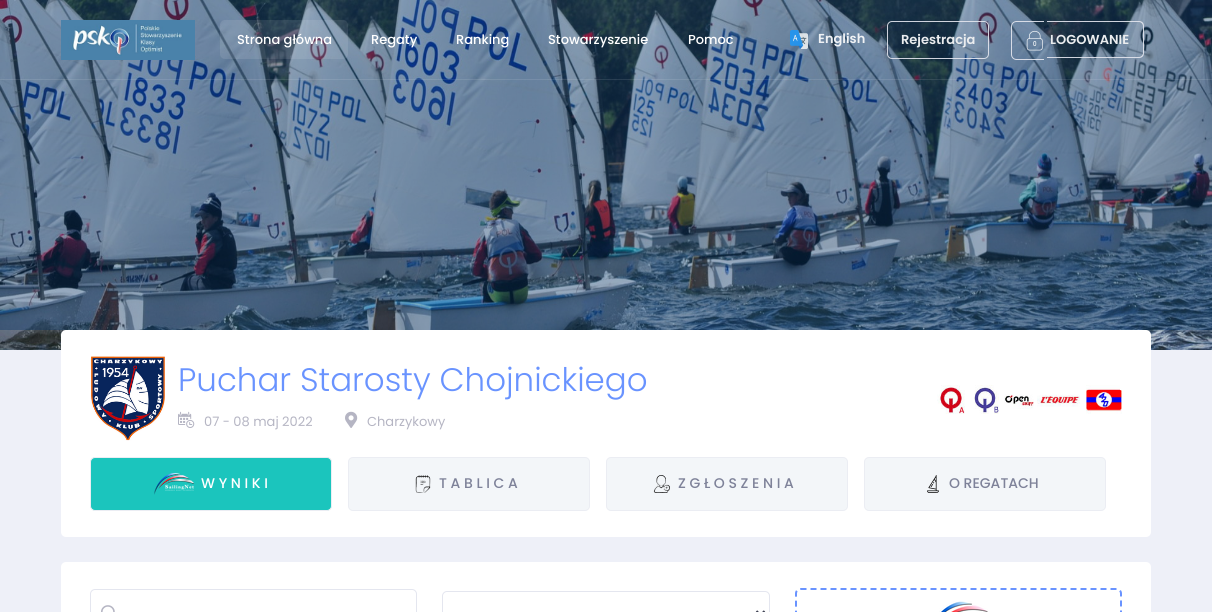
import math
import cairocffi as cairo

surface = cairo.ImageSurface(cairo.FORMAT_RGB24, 1212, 612)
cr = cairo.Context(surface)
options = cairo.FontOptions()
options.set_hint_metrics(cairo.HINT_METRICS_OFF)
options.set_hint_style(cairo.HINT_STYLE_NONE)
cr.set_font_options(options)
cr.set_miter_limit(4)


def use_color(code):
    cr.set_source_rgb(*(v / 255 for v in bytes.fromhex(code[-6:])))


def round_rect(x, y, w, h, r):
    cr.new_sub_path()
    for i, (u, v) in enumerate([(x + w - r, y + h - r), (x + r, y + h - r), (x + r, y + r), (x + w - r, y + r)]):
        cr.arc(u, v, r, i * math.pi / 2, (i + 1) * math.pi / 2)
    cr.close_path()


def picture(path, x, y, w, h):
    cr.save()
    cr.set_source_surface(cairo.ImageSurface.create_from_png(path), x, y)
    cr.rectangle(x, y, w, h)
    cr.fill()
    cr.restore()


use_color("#eef0f8")
cr.paint()
picture("img1.png", 0, 0, 1212, 350)
cr.set_source_rgba(0, 0.2, 0.4, 0.4)
cr.rectangle(0, 0, 1212, 80)
cr.fill()
cr.set_source_rgba(1, 1, 1, 0.1)
cr.rectangle(0, 79, 1212, 1)
cr.fill()
picture("img2.png", 61, 20, 134, 40)
round_rect(220, 20, 128, 39, 5)
cr.fill()
cr.select_font_face("Poppins Medium")
cr.set_font_size(13)
use_color("#ffffff")
cr.move_to(237, 44)
cr.show_text("Strona główna")
cr.move_to(371, 44)
cr.show_text("Regaty")
cr.move_to(456, 44)
cr.show_text("Ranking")
cr.move_to(548, 44)
cr.show_text("Stowarzyszenie")
cr.move_to(688, 44)
cr.show_text("Pomoc")
picture("img3.png", 790, 30, 18, 19)
cr.select_font_face("Poppins SemiBold")
use_color("#f0f2f5")
cr.move_to(818, 43)
cr.show_text("English")
round_rect(887.5, 21.5, 101, 37, 4.5)
cr.set_source_rgba(0.894, 0.902, 0.937, 0.9)
cr.set_line_width(1)
cr.stroke()
use_color("#ebedef")
cr.move_to(901, 44)
cr.show_text("Rejestracja")
cr.set_source_rgba(0.894, 0.902, 0.937, 0.9)
cr.set_fill_rule(cairo.FILL_RULE_EVEN_ODD)
cr.new_path()
cr.move_to(1016.5, 21)
cr.line_to(1044, 21)
cr.line_to(1044, 60)
cr.line_to(1016.5, 60)
cr.curve_to(1013.5, 60, 1011, 57.5, 1011, 54.5)
cr.line_to(1011, 26.5)
cr.curve_to(1011, 23.5, 1013.5, 21, 1016.5, 21)
cr.close_path()
cr.move_to(1016.5, 22)
cr.line_to(1044, 22)
cr.line_to(1044, 59)
cr.line_to(1016.5, 59)
cr.curve_to(1014, 59, 1012, 57, 1012, 54.5)
cr.line_to(1012, 26.5)
cr.curve_to(1012, 24, 1014, 22, 1016.5, 22)
cr.close_path()
cr.fill()
cr.new_path()
cr.move_to(1047, 21)
cr.line_to(1139, 21)
cr.curve_to(1142, 21, 1144, 23, 1144, 26)
cr.line_to(1144, 53)
cr.curve_to(1144, 56, 1142, 58, 1139, 58)
cr.line_to(1047, 58)
cr.close_path()
cr.move_to(1047, 22)
cr.line_to(1139, 22)
cr.curve_to(1141, 22, 1143, 24, 1143, 26)
cr.line_to(1143, 53)
cr.curve_to(1143, 55, 1141, 57, 1139, 57)
cr.line_to(1047, 57)
cr.close_path()
cr.fill()
picture("img4.png", 1026, 30, 17, 21)
use_color("#ebedef")
cr.move_to(1050, 44)
cr.show_text("LOGOWANIE")
cr.set_source_rgba(0, 0.2, 0.4, 0.4)
cr.rectangle(0, 80, 1212, 250)
cr.fill()
use_color("#ffffff")
round_rect(61, 330, 1090, 207, 5)
cr.fill()
picture("img5.png", 90, 356, 75, 85)
cr.select_font_face("Poppins Light")
cr.set_font_size(32.5)
use_color("#6993ff")
cr.move_to(178, 391)
cr.show_text("Puchar Starosty Chojnickiego")
picture("img6.png", 178, 411, 17, 17)
cr.select_font_face("Poppins")
cr.set_font_size(13)
use_color("#b5b5c3")
cr.move_to(204, 426)
cr.show_text("07 - 08 maj 2022")
picture("img7.png", 345, 411, 13, 17)
cr.move_to(367, 426)
cr.show_text("Charzykowy")
picture("img8.png", 937, 385, 28, 29)
picture("img9.png", 974, 385, 25, 29)
picture("img10.png", 1004, 394, 30, 15)
picture("img11.png", 1037, 394, 43, 13)
picture("img12.png", 1086, 385, 36, 29)
use_color("#1bc5bd")
round_rect(90.5, 457.5, 241, 53, 4.5)
cr.fill_preserve()
use_color("#ebedf3")
cr.stroke()
picture("img13.png", 154, 473, 40, 22)
cr.select_font_face("Poppins Medium")
cr.set_font_size(14)
use_color("#ffffff")
cr.move_to(201, 488)
cr.show_text("W Y N I K I")
use_color("#f3f6f9")
round_rect(348.5, 457.5, 241, 53, 4.5)
cr.fill_preserve()
use_color("#ebedf3")
cr.stroke()
picture("img14.png", 415, 475, 16, 18)
use_color("#7e8299")
cr.move_to(439, 488)
cr.show_text("T A B L I C A")
use_color("#f3f6f9")
round_rect(606.5, 457.5, 241, 53, 4.5)
cr.fill_preserve()
use_color("#ebedf3")
cr.stroke()
picture("img15.png", 653, 475, 17, 18)
use_color("#7e8299")
cr.move_to(678, 488)
cr.show_text("Z G Ł O S Z E N I A")
use_color("#f3f6f9")
round_rect(864.5, 457.5, 241, 53, 4.5)
cr.fill_preserve()
use_color("#ebedf3")
cr.stroke()
picture("img16.png", 927, 475, 12, 18)
use_color("#7e8299")
cr.move_to(949, 488)
cr.show_text("O REGATACH")
use_color("#ffffff")
round_rect(61, 562, 1090, 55, 5)
cr.fill()
round_rect(90.5, 589.5, 326, 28, 4.5)
use_color("#e4e6ef")
cr.stroke()
picture("img17.png", 101, 605, 14, 7)
round_rect(442.5, 591.5, 327, 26, 4.5)
cr.stroke()
cr.new_path()
cr.move_to(756.5, 611)
cr.line_to(760.5, 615)
cr.line_to(764.5, 611)
use_color("#3f4254")
cr.set_line_width(2)
cr.stroke()
cr.new_path()
cr.move_to(800.5, 589)
cr.line_to(1116.5, 589)
cr.curve_to(1119, 589, 1121, 591, 1121, 593.5)
cr.line_to(1121, 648.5)
cr.curve_to(1121, 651, 1119, 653, 1116.5, 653)
cr.line_to(800.5, 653)
cr.curve_to(798, 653, 796, 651, 796, 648.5)
cr.line_to(796, 593.5)
cr.curve_to(796, 591, 798, 589, 800.5, 589)
cr.close_path()
use_color("#6993ff")
cr.set_dash([6, 4])
cr.stroke()
picture("img18.png", 939, 601, 49, 11)
surface.write_to_png("result.png")
